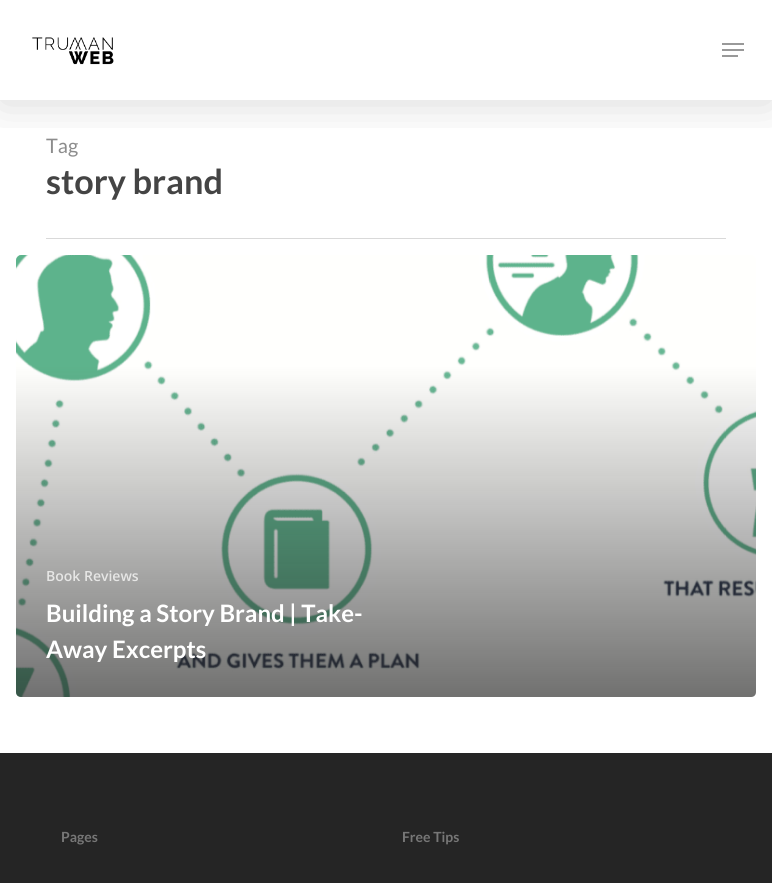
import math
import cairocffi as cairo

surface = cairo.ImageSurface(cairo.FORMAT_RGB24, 772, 883)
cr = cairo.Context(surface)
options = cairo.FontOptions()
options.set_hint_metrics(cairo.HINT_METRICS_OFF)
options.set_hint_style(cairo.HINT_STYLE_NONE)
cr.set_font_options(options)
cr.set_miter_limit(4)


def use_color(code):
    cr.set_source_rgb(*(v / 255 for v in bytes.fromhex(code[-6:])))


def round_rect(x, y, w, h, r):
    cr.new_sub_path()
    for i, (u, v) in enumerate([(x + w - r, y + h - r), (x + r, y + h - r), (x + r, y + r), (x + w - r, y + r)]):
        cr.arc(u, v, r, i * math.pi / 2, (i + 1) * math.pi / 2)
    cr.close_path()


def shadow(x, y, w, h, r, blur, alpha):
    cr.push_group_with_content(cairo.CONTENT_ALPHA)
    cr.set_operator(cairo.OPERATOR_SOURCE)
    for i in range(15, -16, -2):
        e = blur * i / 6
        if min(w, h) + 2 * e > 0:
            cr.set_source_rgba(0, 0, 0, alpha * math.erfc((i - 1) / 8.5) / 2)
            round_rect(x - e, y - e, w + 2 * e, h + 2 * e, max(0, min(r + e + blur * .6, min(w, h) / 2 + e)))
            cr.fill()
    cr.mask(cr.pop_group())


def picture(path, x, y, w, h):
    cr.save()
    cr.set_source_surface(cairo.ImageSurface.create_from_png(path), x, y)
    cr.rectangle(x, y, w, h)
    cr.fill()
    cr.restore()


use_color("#ffffff")
cr.paint()
cr.save()
cr.rectangle(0, 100, 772, 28)
cr.clip()
use_color("#000000")
shadow(0, 3, 772, 100, 0, 22.5, 0.15)
cr.restore()
picture("img1.png", 32, 37, 82, 28)
use_color("#999999")
cr.rectangle(722, 43, 22, 2)
cr.fill()
cr.rectangle(722, 55, 16, 2)
cr.fill()
cr.rectangle(722, 49, 22, 2)
cr.fill()
use_color("#d9d9d9")
cr.rectangle(46, 238, 680, 1)
cr.fill()
cr.select_font_face("Lato")
cr.set_font_size(20)
use_color("#8c8c8c")
cr.move_to(46, 153)
cr.show_text("Tag")
cr.select_font_face("Lato", cairo.FONT_SLANT_NORMAL, cairo.FONT_WEIGHT_BOLD)
cr.set_font_size(34.25)
use_color("#444444")
cr.move_to(46, 194)
cr.show_text("story brand")
picture("img2.png", 16, 255, 740, 442)
gradient = cairo.LinearGradient(388, 366, 388, 699)
gradient.add_color_stop_rgba(0, 0.137, 0.137, 0.137, 0)
gradient.add_color_stop_rgba(1, 0.137, 0.137, 0.137, 0.65)
cr.set_source(gradient)
cr.new_path()
cr.move_to(16, 366)
cr.line_to(756, 366)
cr.line_to(756, 692)
cr.curve_to(756, 695, 754, 697, 751, 697)
cr.line_to(21, 697)
cr.curve_to(18, 697, 16, 695, 16, 692)
cr.close_path()
cr.fill()
cr.select_font_face("Open Sans SemiBold")
cr.set_font_size(14)
use_color("#e6e6e5")
cr.move_to(46, 581)
cr.show_text("Book Reviews")
cr.select_font_face("Lato", cairo.FONT_SLANT_NORMAL, cairo.FONT_WEIGHT_BOLD)
cr.set_font_size(24)
use_color("#ffffff")
cr.move_to(46, 622)
cr.show_text("Building a Story Brand | Take-")
cr.move_to(46, 658)
cr.show_text("Away Excerpts")
use_color("#252525")
cr.rectangle(0, 753, 772, 130)
cr.fill()
cr.set_font_size(14)
use_color("#777777")
cr.move_to(61, 842)
cr.show_text("Pages")
cr.move_to(402, 842)
cr.show_text("Free Tips")
surface.write_to_png("result.png")
